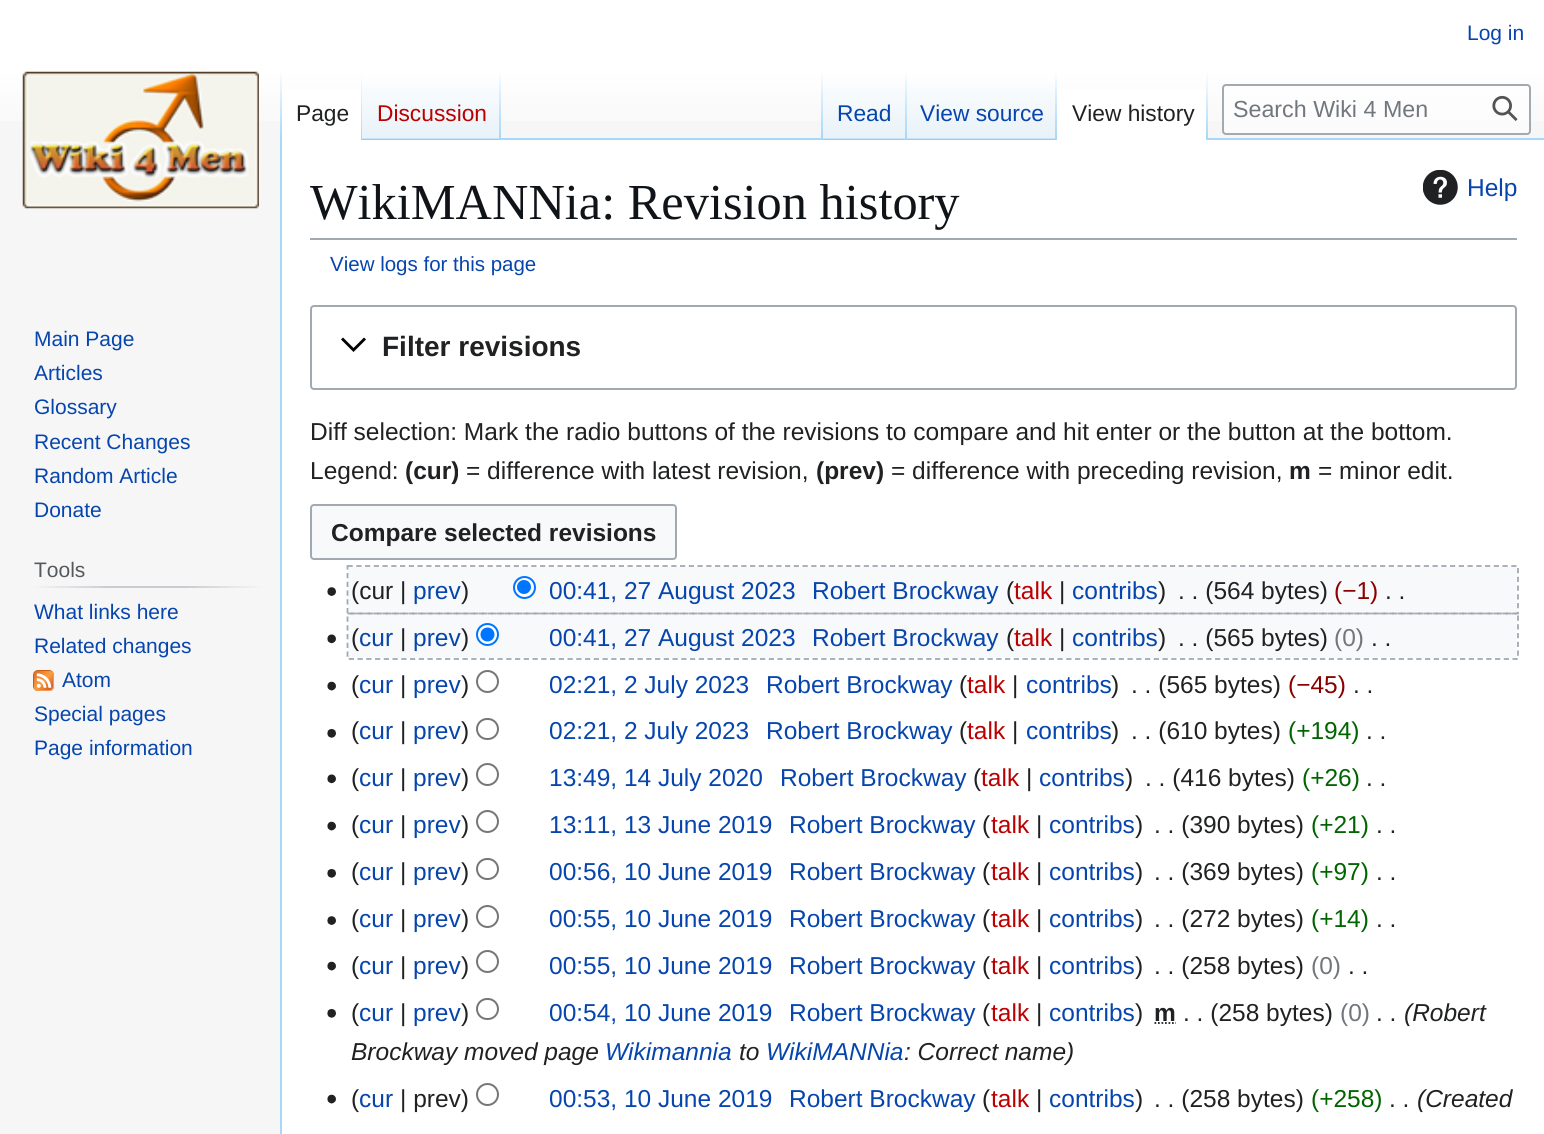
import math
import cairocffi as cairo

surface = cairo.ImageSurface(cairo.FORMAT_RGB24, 1544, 1134)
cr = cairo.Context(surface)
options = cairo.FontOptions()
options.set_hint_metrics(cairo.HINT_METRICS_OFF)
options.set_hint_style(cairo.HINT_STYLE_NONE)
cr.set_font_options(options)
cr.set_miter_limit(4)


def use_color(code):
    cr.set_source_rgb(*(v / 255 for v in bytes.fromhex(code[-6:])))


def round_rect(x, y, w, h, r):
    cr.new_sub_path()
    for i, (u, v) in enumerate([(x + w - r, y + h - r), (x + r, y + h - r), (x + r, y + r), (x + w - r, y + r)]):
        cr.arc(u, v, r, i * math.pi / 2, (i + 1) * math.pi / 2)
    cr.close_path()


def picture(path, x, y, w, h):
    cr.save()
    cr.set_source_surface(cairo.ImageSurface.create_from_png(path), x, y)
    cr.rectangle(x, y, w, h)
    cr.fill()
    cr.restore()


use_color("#f6f6f6")
cr.paint()
gradient = cairo.LinearGradient(773, 0, 773, 140)
gradient.add_color_stop_rgba(0.5, 1, 1, 1, 1)
gradient.add_color_stop_rgba(1, 0.965, 0.965, 0.965, 1)
cr.set_source(gradient)
cr.rectangle(0, 0, 1544, 121)
cr.fill()
cr.select_font_face("Liberation Sans")
cr.set_font_size(21)
use_color("#0645ad")
cr.move_to(1467, 40)
cr.show_text("Log in")
use_color("#a7d7f9")
cr.rectangle(280, 138, 2, 996)
cr.fill()
gradient = cairo.LinearGradient(281, 70, 281, 140)
gradient.add_color_stop_rgba(0, 0.655, 0.843, 0.976, 0)
gradient.add_color_stop_rgba(1, 0.655, 0.843, 0.976, 1)
cr.set_source(gradient)
cr.rectangle(280, 70, 2, 70)
cr.fill()
use_color("#ffffff")
cr.rectangle(282, 89, 79, 51)
cr.fill()
gradient = cairo.LinearGradient(361, 70, 361, 140)
gradient.add_color_stop_rgba(0, 1, 1, 1, 1)
gradient.add_color_stop_rgba(1, 0.655, 0.843, 0.976, 1)
cr.set_source(gradient)
cr.rectangle(361, 70, 1, 70)
cr.fill()
cr.set_font_size(22.75)
use_color("#202122")
cr.move_to(296, 121)
cr.show_text("Page")
gradient = cairo.LinearGradient(431, 140, 431, 70)
gradient.add_color_stop_rgba(0, 0.467, 0.757, 0.965, 1)
gradient.add_color_stop_rgba(0.03, 0.91, 0.949, 0.973, 1)
gradient.add_color_stop_rgba(1, 1, 1, 1, 1)
cr.set_source(gradient)
cr.rectangle(362, 80, 139, 60)
cr.fill()
gradient = cairo.LinearGradient(500, 70, 500, 140)
gradient.add_color_stop_rgba(0, 0.655, 0.843, 0.976, 0)
gradient.add_color_stop_rgba(1, 0.655, 0.843, 0.976, 1)
cr.set_source(gradient)
cr.rectangle(499, 70, 2, 70)
cr.fill()
use_color("#ba0000")
cr.move_to(377, 121)
cr.show_text("Discussion")
use_color("#a7d7f9")
cr.rectangle(501, 138, 1043, 2)
cr.fill()
gradient = cairo.LinearGradient(822, 70, 822, 140)
gradient.add_color_stop_rgba(0, 0.655, 0.843, 0.976, 0)
gradient.add_color_stop_rgba(1, 0.655, 0.843, 0.976, 1)
cr.set_source(gradient)
cr.rectangle(821, 70, 2, 70)
cr.fill()
gradient = cairo.LinearGradient(865, 140, 865, 70)
gradient.add_color_stop_rgba(0, 0.467, 0.757, 0.965, 1)
gradient.add_color_stop_rgba(0.03, 0.91, 0.949, 0.973, 1)
gradient.add_color_stop_rgba(1, 1, 1, 1, 1)
cr.set_source(gradient)
cr.rectangle(823, 80, 84, 60)
cr.fill()
gradient = cairo.LinearGradient(906, 70, 906, 140)
gradient.add_color_stop_rgba(0, 0.655, 0.843, 0.976, 0)
gradient.add_color_stop_rgba(1, 0.655, 0.843, 0.976, 1)
cr.set_source(gradient)
cr.rectangle(905, 70, 2, 70)
cr.fill()
use_color("#0645ad")
cr.move_to(837, 121)
cr.show_text("Read")
gradient = cairo.LinearGradient(982, 140, 982, 70)
gradient.add_color_stop_rgba(0, 0.467, 0.757, 0.965, 1)
gradient.add_color_stop_rgba(0.03, 0.91, 0.949, 0.973, 1)
gradient.add_color_stop_rgba(1, 1, 1, 1, 1)
cr.set_source(gradient)
cr.rectangle(907, 80, 150, 60)
cr.fill()
gradient = cairo.LinearGradient(1056, 70, 1056, 140)
gradient.add_color_stop_rgba(0, 0.655, 0.843, 0.976, 0)
gradient.add_color_stop_rgba(1, 0.655, 0.843, 0.976, 1)
cr.set_source(gradient)
cr.rectangle(1055, 70, 2, 70)
cr.fill()
use_color("#0645ad")
cr.move_to(920, 121)
cr.show_text("View source")
use_color("#ffffff")
cr.rectangle(1057, 89, 149, 51)
cr.fill()
gradient = cairo.LinearGradient(1207, 70, 1207, 140)
gradient.add_color_stop_rgba(0, 1, 1, 1, 1)
gradient.add_color_stop_rgba(1, 0.655, 0.843, 0.976, 1)
cr.set_source(gradient)
cr.rectangle(1206, 70, 2, 70)
cr.fill()
use_color("#202122")
cr.move_to(1072, 121)
cr.show_text("View history")
cr.set_source_rgba(1, 1, 1, 0.5)
round_rect(1223, 85, 307, 49, 3)
cr.fill_preserve()
use_color("#a2a9b1")
cr.stroke()
cr.set_font_size(23.25)
use_color("#72777d")
cr.move_to(1233, 117)
cr.show_text("Search Wiki 4 Men")
picture("img1.png", 1492, 95, 26, 26)
picture("img2.png", 22, 71, 237, 138)
cr.set_font_size(21)
use_color("#0645ad")
cr.move_to(34, 346)
cr.show_text("Main Page")
cr.move_to(34, 380)
cr.show_text("Articles")
cr.move_to(34, 414)
cr.show_text("Glossary")
cr.move_to(34, 449)
cr.show_text("Recent Changes")
cr.move_to(34, 483)
cr.show_text("Random Article")
cr.move_to(34, 517)
cr.show_text("Donate")
gradient = cairo.LinearGradient(33, 587, 263, 587)
gradient.add_color_stop_rgba(0, 0.965, 0.965, 0.965, 1)
gradient.add_color_stop_rgba(0.33, 0.784, 0.8, 0.82, 1)
gradient.add_color_stop_rgba(0.66, 0.784, 0.8, 0.82, 1)
gradient.add_color_stop_rgba(1, 0.965, 0.965, 0.965, 1)
cr.set_source(gradient)
cr.rectangle(33, 586, 230, 2)
cr.fill()
use_color("#54595d")
cr.move_to(34, 577)
cr.show_text("Tools")
use_color("#0645ad")
cr.move_to(34, 619)
cr.show_text("What links here")
cr.move_to(34, 653)
cr.show_text("Related changes")
picture("img3.png", 33, 670, 21, 21)
cr.move_to(62, 687)
cr.show_text("Atom")
cr.move_to(34, 721)
cr.show_text("Special pages")
cr.move_to(34, 755)
cr.show_text("Page information")
use_color("#ffffff")
cr.rectangle(282, 140, 1262, 994)
cr.fill()
use_color("#a2a9b1")
cr.rectangle(310, 238, 1207, 2)
cr.fill()
cr.select_font_face("Liberation Serif")
cr.set_font_size(50.4)
use_color("#101418")
cr.move_to(310, 219)
cr.show_text("WikiMANNia: Revision history")
picture("img4.png", 1423, 170, 35, 35)
cr.select_font_face("Liberation Sans")
cr.set_font_size(24.5)
use_color("#0645ad")
cr.move_to(1467, 196)
cr.show_text("Help")
cr.set_font_size(20.5)
cr.move_to(330, 271)
cr.show_text("View logs for this page")
round_rect(311, 306, 1205, 83, 3)
use_color("#a2a9b1")
cr.stroke()
use_color("#000000")
cr.new_path()
cr.move_to(364, 337.5)
cr.line_to(353.5, 348)
cr.line_to(343, 337.5)
cr.line_to(341, 339.5)
cr.line_to(353.5, 352)
cr.line_to(366, 339.5)
cr.close_path()
cr.fill()
cr.select_font_face("Liberation Sans", cairo.FONT_SLANT_NORMAL, cairo.FONT_WEIGHT_BOLD)
cr.set_font_size(28)
use_color("#202122")
cr.move_to(382, 356)
cr.show_text("Filter revisions")
cr.select_font_face("Liberation Sans")
cr.set_font_size(24.5)
cr.move_to(310, 440)
cr.show_text("Diff selection: Mark the radio buttons of the revisions to compare and hit enter or the button at the bottom.")
cr.move_to(310, 479)
cr.show_text("Legend:")
cr.select_font_face("Liberation Sans", cairo.FONT_SLANT_NORMAL, cairo.FONT_WEIGHT_BOLD)
cr.move_to(405, 479)
cr.show_text("(cur)")
cr.select_font_face("Liberation Sans")
cr.move_to(466, 479)
cr.show_text("= difference with latest revision,")
cr.select_font_face("Liberation Sans", cairo.FONT_SLANT_NORMAL, cairo.FONT_WEIGHT_BOLD)
cr.move_to(816, 479)
cr.show_text("(prev)")
cr.select_font_face("Liberation Sans")
cr.move_to(891, 479)
cr.show_text("= difference with preceding revision,")
cr.select_font_face("Liberation Sans", cairo.FONT_SLANT_NORMAL, cairo.FONT_WEIGHT_BOLD)
cr.move_to(1289, 479)
cr.show_text("m")
cr.select_font_face("Liberation Sans")
cr.move_to(1318, 479)
cr.show_text("= minor edit.")
use_color("#f8f9fa")
round_rect(311, 505, 365, 54, 3)
cr.fill_preserve()
use_color("#a2a9b1")
cr.stroke()
cr.select_font_face("Liberation Sans", cairo.FONT_SLANT_NORMAL, cairo.FONT_WEIGHT_BOLD)
use_color("#202122")
cr.move_to(331, 541)
cr.show_text("Compare selected revisions")
use_color("#f8f9fa")
cr.rectangle(348, 567, 1169, 46)
cr.fill()
picture("img5.png", 327, 587, 9, 9)
cr.select_font_face("Liberation Sans")
use_color("#202122")
cr.move_to(351, 599)
cr.show_text("(cur |")
use_color("#0645ad")
cr.move_to(413, 599)
cr.show_text("prev")
use_color("#202122")
cr.move_to(461, 599)
cr.show_text(")")
use_color("#ffffff")
cr.new_path()
cr.arc(524.5, 587.5, 10.5, 0, 2 * math.pi)
cr.fill_preserve()
use_color("#0075ff")
cr.stroke()
cr.arc(524, 587, 7, 0, 2 * math.pi)
cr.fill()
use_color("#0645ad")
cr.move_to(549, 599)
cr.show_text("00:41, 27 August 2023")
cr.move_to(812, 599)
cr.show_text("Robert Brockway")
use_color("#202122")
cr.move_to(1006, 599)
cr.show_text("(")
use_color("#ba0000")
cr.move_to(1014, 599)
cr.show_text("talk")
use_color("#202122")
cr.move_to(1059, 599)
cr.show_text("|")
use_color("#0645ad")
cr.move_to(1072, 599)
cr.show_text("contribs")
use_color("#202122")
cr.move_to(1158, 599)
cr.show_text(")")
cr.move_to(1178, 599)
cr.show_text(". . (564 bytes)")
use_color("#8b0000")
cr.move_to(1334, 599)
cr.show_text("(−1)")
use_color("#202122")
cr.move_to(1385, 599)
cr.show_text(". .")
use_color("#f8f9fa")
cr.rectangle(348, 614, 1169, 44)
cr.fill()
cr.new_path()
cr.move_to(347.5, 566)
cr.line_to(1518, 566)
cr.line_to(1518, 613.5)
cr.line_to(347.5, 613.5)
cr.close_path()
use_color("#a2a9b1")
cr.set_line_width(1.8)
cr.set_dash([5.25, 3.5])
cr.stroke()
picture("img6.png", 327, 634, 9, 10)
use_color("#202122")
cr.move_to(351, 646)
cr.show_text("(")
use_color("#0645ad")
cr.move_to(359, 646)
cr.show_text("cur")
use_color("#202122")
cr.move_to(400, 646)
cr.show_text("|")
use_color("#0645ad")
cr.move_to(413, 646)
cr.show_text("prev")
use_color("#202122")
cr.move_to(461, 646)
cr.show_text(")")
use_color("#ffffff")
cr.new_path()
cr.arc(487.5, 634.5, 10.5, 0, 2 * math.pi)
cr.fill_preserve()
use_color("#0075ff")
cr.set_line_width(2)
cr.set_dash([])
cr.stroke()
cr.arc(487.5, 634.5, 7, 0, 2 * math.pi)
cr.fill()
use_color("#0645ad")
cr.move_to(549, 646)
cr.show_text("00:41, 27 August 2023")
cr.move_to(812, 646)
cr.show_text("Robert Brockway")
use_color("#202122")
cr.move_to(1006, 646)
cr.show_text("(")
use_color("#ba0000")
cr.move_to(1014, 646)
cr.show_text("talk")
use_color("#202122")
cr.move_to(1059, 646)
cr.show_text("|")
use_color("#0645ad")
cr.move_to(1072, 646)
cr.show_text("contribs")
use_color("#202122")
cr.move_to(1158, 646)
cr.show_text(")")
cr.move_to(1178, 646)
cr.show_text(". . (565 bytes)")
use_color("#72777d")
cr.move_to(1334, 646)
cr.show_text("(0)")
use_color("#202122")
cr.move_to(1371, 646)
cr.show_text(". .")
cr.new_path()
cr.move_to(347.5, 613.5)
cr.line_to(1518, 613.5)
cr.line_to(1518, 659)
cr.line_to(347.5, 659)
cr.close_path()
use_color("#a2a9b1")
cr.set_line_width(1.8)
cr.set_dash([5.25, 3.5])
cr.stroke()
picture("img7.png", 327, 681, 9, 10)
use_color("#202122")
cr.move_to(351, 693)
cr.show_text("(")
use_color("#0645ad")
cr.move_to(359, 693)
cr.show_text("cur")
use_color("#202122")
cr.move_to(400, 693)
cr.show_text("|")
use_color("#0645ad")
cr.move_to(413, 693)
cr.show_text("prev")
use_color("#202122")
cr.move_to(461, 693)
cr.show_text(")")
cr.new_path()
cr.arc(487.5, 681.5, 10.5, 0, 2 * math.pi)
use_color("#767676")
cr.set_line_width(2)
cr.set_dash([])
cr.stroke()
use_color("#0645ad")
cr.move_to(549, 693)
cr.show_text("02:21, 2 July 2023")
cr.move_to(766, 693)
cr.show_text("Robert Brockway")
use_color("#202122")
cr.move_to(959, 693)
cr.show_text("(")
use_color("#ba0000")
cr.move_to(967, 693)
cr.show_text("talk")
use_color("#202122")
cr.move_to(1012, 693)
cr.show_text("|")
use_color("#0645ad")
cr.move_to(1026, 693)
cr.show_text("contribs")
use_color("#202122")
cr.move_to(1111, 693)
cr.show_text(")")
cr.move_to(1131, 693)
cr.show_text(". . (565 bytes)")
use_color("#8b0000")
cr.move_to(1288, 693)
cr.show_text("(−45)")
use_color("#202122")
cr.move_to(1353, 693)
cr.show_text(". .")
picture("img8.png", 327, 729, 9, 9)
cr.move_to(351, 739)
cr.show_text("(")
use_color("#0645ad")
cr.move_to(359, 739)
cr.show_text("cur")
use_color("#202122")
cr.move_to(400, 739)
cr.show_text("|")
use_color("#0645ad")
cr.move_to(413, 739)
cr.show_text("prev")
use_color("#202122")
cr.move_to(461, 739)
cr.show_text(")")
round_rect(477, 719, 21, 20, 10)
use_color("#767676")
cr.stroke()
use_color("#0645ad")
cr.move_to(549, 739)
cr.show_text("02:21, 2 July 2023")
cr.move_to(766, 739)
cr.show_text("Robert Brockway")
use_color("#202122")
cr.move_to(959, 739)
cr.show_text("(")
use_color("#ba0000")
cr.move_to(967, 739)
cr.show_text("talk")
use_color("#202122")
cr.move_to(1012, 739)
cr.show_text("|")
use_color("#0645ad")
cr.move_to(1026, 739)
cr.show_text("contribs")
use_color("#202122")
cr.move_to(1111, 739)
cr.show_text(")")
cr.move_to(1131, 739)
cr.show_text(". . (610 bytes)")
use_color("#006400")
cr.move_to(1288, 739)
cr.show_text("(+194)")
use_color("#202122")
cr.move_to(1366, 739)
cr.show_text(". .")
picture("img6.png", 327, 774, 9, 10)
cr.move_to(351, 786)
cr.show_text("(")
use_color("#0645ad")
cr.move_to(359, 786)
cr.show_text("cur")
use_color("#202122")
cr.move_to(400, 786)
cr.show_text("|")
use_color("#0645ad")
cr.move_to(413, 786)
cr.show_text("prev")
use_color("#202122")
cr.move_to(461, 786)
cr.show_text(")")
cr.new_path()
cr.arc(487.5, 774.5, 10.5, 0, 2 * math.pi)
use_color("#767676")
cr.stroke()
use_color("#0645ad")
cr.move_to(549, 786)
cr.show_text("13:49, 14 July 2020")
cr.move_to(780, 786)
cr.show_text("Robert Brockway")
use_color("#202122")
cr.move_to(973, 786)
cr.show_text("(")
use_color("#ba0000")
cr.move_to(981, 786)
cr.show_text("talk")
use_color("#202122")
cr.move_to(1026, 786)
cr.show_text("|")
use_color("#0645ad")
cr.move_to(1039, 786)
cr.show_text("contribs")
use_color("#202122")
cr.move_to(1125, 786)
cr.show_text(")")
cr.move_to(1145, 786)
cr.show_text(". . (416 bytes)")
use_color("#006400")
cr.move_to(1302, 786)
cr.show_text("(+26)")
use_color("#202122")
cr.move_to(1366, 786)
cr.show_text(". .")
picture("img7.png", 327, 821, 9, 10)
cr.move_to(351, 833)
cr.show_text("(")
use_color("#0645ad")
cr.move_to(359, 833)
cr.show_text("cur")
use_color("#202122")
cr.move_to(400, 833)
cr.show_text("|")
use_color("#0645ad")
cr.move_to(413, 833)
cr.show_text("prev")
use_color("#202122")
cr.move_to(461, 833)
cr.show_text(")")
cr.new_path()
cr.arc(487.5, 821.5, 10.5, 0, 2 * math.pi)
use_color("#767676")
cr.stroke()
use_color("#0645ad")
cr.move_to(549, 833)
cr.show_text("13:11, 13 June 2019")
cr.move_to(789, 833)
cr.show_text("Robert Brockway")
use_color("#202122")
cr.move_to(982, 833)
cr.show_text("(")
use_color("#ba0000")
cr.move_to(991, 833)
cr.show_text("talk")
use_color("#202122")
cr.move_to(1036, 833)
cr.show_text("|")
use_color("#0645ad")
cr.move_to(1049, 833)
cr.show_text("contribs")
use_color("#202122")
cr.move_to(1135, 833)
cr.show_text(")")
cr.move_to(1154, 833)
cr.show_text(". . (390 bytes)")
use_color("#006400")
cr.move_to(1311, 833)
cr.show_text("(+21)")
use_color("#202122")
cr.move_to(1376, 833)
cr.show_text(". .")
picture("img8.png", 327, 869, 9, 9)
cr.move_to(351, 880)
cr.show_text("(")
use_color("#0645ad")
cr.move_to(359, 880)
cr.show_text("cur")
use_color("#202122")
cr.move_to(400, 880)
cr.show_text("|")
use_color("#0645ad")
cr.move_to(413, 880)
cr.show_text("prev")
use_color("#202122")
cr.move_to(461, 880)
cr.show_text(")")
round_rect(477, 859, 21, 20, 10)
use_color("#767676")
cr.stroke()
use_color("#0645ad")
cr.move_to(549, 880)
cr.show_text("00:56, 10 June 2019")
cr.move_to(789, 880)
cr.show_text("Robert Brockway")
use_color("#202122")
cr.move_to(982, 880)
cr.show_text("(")
use_color("#ba0000")
cr.move_to(991, 880)
cr.show_text("talk")
use_color("#202122")
cr.move_to(1036, 880)
cr.show_text("|")
use_color("#0645ad")
cr.move_to(1049, 880)
cr.show_text("contribs")
use_color("#202122")
cr.move_to(1135, 880)
cr.show_text(")")
cr.move_to(1154, 880)
cr.show_text(". . (369 bytes)")
use_color("#006400")
cr.move_to(1311, 880)
cr.show_text("(+97)")
use_color("#202122")
cr.move_to(1376, 880)
cr.show_text(". .")
picture("img5.png", 327, 916, 9, 9)
cr.move_to(351, 927)
cr.show_text("(")
use_color("#0645ad")
cr.move_to(359, 927)
cr.show_text("cur")
use_color("#202122")
cr.move_to(400, 927)
cr.show_text("|")
use_color("#0645ad")
cr.move_to(413, 927)
cr.show_text("prev")
use_color("#202122")
cr.move_to(461, 927)
cr.show_text(")")
cr.new_path()
cr.arc(487.5, 916.5, 10.5, 0, 2 * math.pi)
use_color("#767676")
cr.stroke()
use_color("#0645ad")
cr.move_to(549, 927)
cr.show_text("00:55, 10 June 2019")
cr.move_to(789, 927)
cr.show_text("Robert Brockway")
use_color("#202122")
cr.move_to(982, 927)
cr.show_text("(")
use_color("#ba0000")
cr.move_to(991, 927)
cr.show_text("talk")
use_color("#202122")
cr.move_to(1036, 927)
cr.show_text("|")
use_color("#0645ad")
cr.move_to(1049, 927)
cr.show_text("contribs")
use_color("#202122")
cr.move_to(1135, 927)
cr.show_text(")")
cr.move_to(1154, 927)
cr.show_text(". . (272 bytes)")
use_color("#006400")
cr.move_to(1311, 927)
cr.show_text("(+14)")
use_color("#202122")
cr.move_to(1376, 927)
cr.show_text(". .")
picture("img7.png", 327, 961, 9, 10)
cr.move_to(351, 974)
cr.show_text("(")
use_color("#0645ad")
cr.move_to(359, 974)
cr.show_text("cur")
use_color("#202122")
cr.move_to(400, 974)
cr.show_text("|")
use_color("#0645ad")
cr.move_to(413, 974)
cr.show_text("prev")
use_color("#202122")
cr.move_to(461, 974)
cr.show_text(")")
cr.new_path()
cr.arc(487.5, 961.5, 10.5, 0, 2 * math.pi)
use_color("#767676")
cr.stroke()
use_color("#0645ad")
cr.move_to(549, 974)
cr.show_text("00:55, 10 June 2019")
cr.move_to(789, 974)
cr.show_text("Robert Brockway")
use_color("#202122")
cr.move_to(982, 974)
cr.show_text("(")
use_color("#ba0000")
cr.move_to(991, 974)
cr.show_text("talk")
use_color("#202122")
cr.move_to(1036, 974)
cr.show_text("|")
use_color("#0645ad")
cr.move_to(1049, 974)
cr.show_text("contribs")
use_color("#202122")
cr.move_to(1135, 974)
cr.show_text(")")
cr.move_to(1154, 974)
cr.show_text(". . (258 bytes)")
use_color("#72777d")
cr.move_to(1311, 974)
cr.show_text("(0)")
use_color("#202122")
cr.move_to(1348, 974)
cr.show_text(". .")
picture("img8.png", 327, 1009, 9, 9)
cr.move_to(351, 1021)
cr.show_text("(")
use_color("#0645ad")
cr.move_to(359, 1021)
cr.show_text("cur")
use_color("#202122")
cr.move_to(400, 1021)
cr.show_text("|")
use_color("#0645ad")
cr.move_to(413, 1021)
cr.show_text("prev")
use_color("#202122")
cr.move_to(461, 1021)
cr.show_text(")")
round_rect(477, 999, 21, 20, 10)
use_color("#767676")
cr.stroke()
use_color("#0645ad")
cr.move_to(549, 1021)
cr.show_text("00:54, 10 June 2019")
cr.move_to(789, 1021)
cr.show_text("Robert Brockway")
use_color("#202122")
cr.move_to(982, 1021)
cr.show_text("(")
use_color("#ba0000")
cr.move_to(991, 1021)
cr.show_text("talk")
use_color("#202122")
cr.move_to(1036, 1021)
cr.show_text("|")
use_color("#0645ad")
cr.move_to(1049, 1021)
cr.show_text("contribs")
use_color("#202122")
cr.move_to(1135, 1021)
cr.show_text(")")
cr.select_font_face("Liberation Sans", cairo.FONT_SLANT_NORMAL, cairo.FONT_WEIGHT_BOLD)
cr.move_to(1154, 1021)
cr.show_text("m")
cr.new_path()
cr.move_to(1154.5, 1023)
cr.line_to(1176, 1023)
cr.set_line_width(1.8)
cr.set_dash([1.75, 1.75])
cr.stroke()
cr.select_font_face("Liberation Sans")
cr.move_to(1183, 1021)
cr.show_text(". . (258 bytes)")
use_color("#72777d")
cr.move_to(1340, 1021)
cr.show_text("(0)")
use_color("#202122")
cr.move_to(1376, 1021)
cr.show_text(". .")
cr.select_font_face("Liberation Sans", cairo.FONT_SLANT_ITALIC)
cr.move_to(1404, 1021)
cr.show_text("(Robert")
cr.move_to(351, 1060)
cr.show_text("Brockway moved page")
use_color("#0645ad")
cr.move_to(605, 1060)
cr.show_text("Wikimannia")
use_color("#202122")
cr.move_to(739, 1060)
cr.show_text("to")
use_color("#0645ad")
cr.move_to(766, 1060)
cr.show_text("WikiMANNia")
use_color("#202122")
cr.move_to(904, 1060)
cr.show_text(": Correct name)")
picture("img7.png", 327, 1094, 9, 10)
cr.select_font_face("Liberation Sans")
cr.move_to(351, 1107)
cr.show_text("(")
use_color("#0645ad")
cr.move_to(359, 1107)
cr.show_text("cur")
use_color("#202122")
cr.move_to(400, 1107)
cr.show_text("| prev)")
cr.new_path()
cr.arc(487.5, 1094.5, 10.5, 0, 2 * math.pi)
use_color("#767676")
cr.set_line_width(2)
cr.set_dash([])
cr.stroke()
use_color("#0645ad")
cr.move_to(549, 1107)
cr.show_text("00:53, 10 June 2019")
cr.move_to(789, 1107)
cr.show_text("Robert Brockway")
use_color("#202122")
cr.move_to(982, 1107)
cr.show_text("(")
use_color("#ba0000")
cr.move_to(991, 1107)
cr.show_text("talk")
use_color("#202122")
cr.move_to(1036, 1107)
cr.show_text("|")
use_color("#0645ad")
cr.move_to(1049, 1107)
cr.show_text("contribs")
use_color("#202122")
cr.move_to(1135, 1107)
cr.show_text(")")
cr.move_to(1154, 1107)
cr.show_text(". . (258 bytes)")
use_color("#006400")
cr.move_to(1311, 1107)
cr.show_text("(+258)")
use_color("#202122")
cr.move_to(1389, 1107)
cr.show_text(". .")
cr.select_font_face("Liberation Sans", cairo.FONT_SLANT_ITALIC)
cr.move_to(1417, 1107)
cr.show_text("(Created")
surface.write_to_png("result.png")
